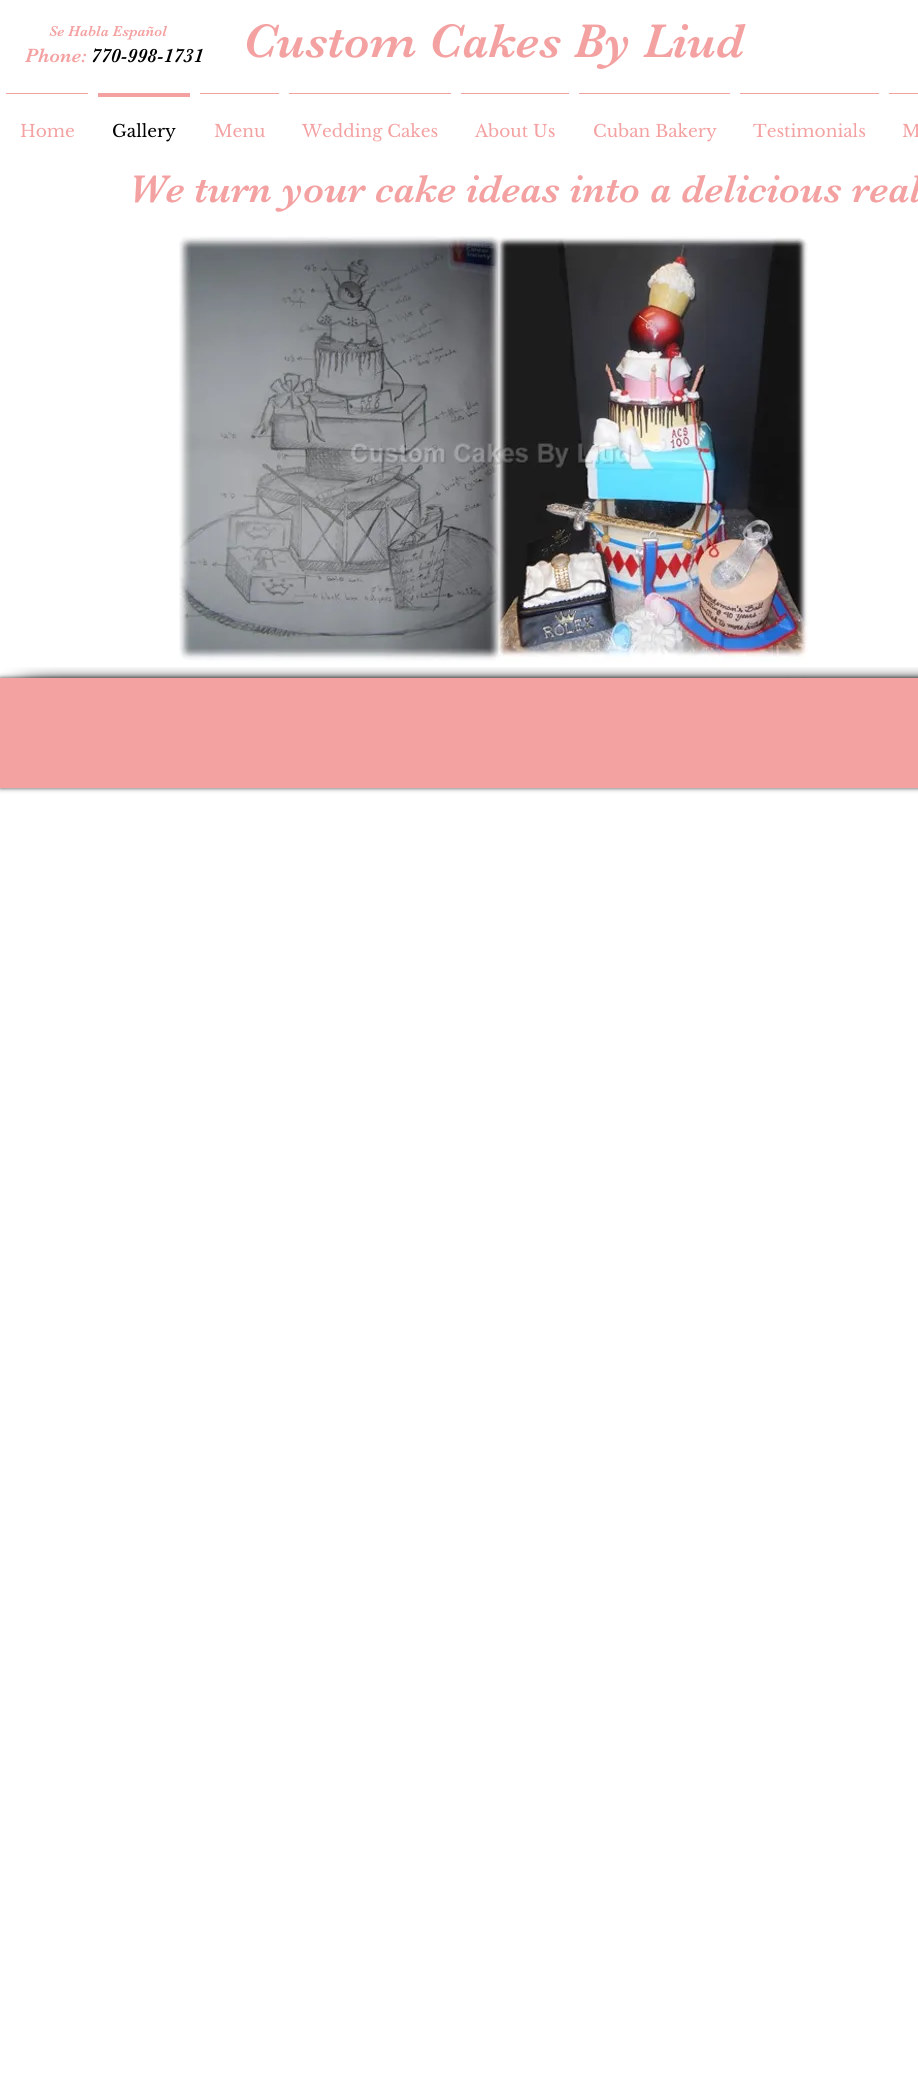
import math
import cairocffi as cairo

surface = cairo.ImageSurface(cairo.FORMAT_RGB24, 918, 2083)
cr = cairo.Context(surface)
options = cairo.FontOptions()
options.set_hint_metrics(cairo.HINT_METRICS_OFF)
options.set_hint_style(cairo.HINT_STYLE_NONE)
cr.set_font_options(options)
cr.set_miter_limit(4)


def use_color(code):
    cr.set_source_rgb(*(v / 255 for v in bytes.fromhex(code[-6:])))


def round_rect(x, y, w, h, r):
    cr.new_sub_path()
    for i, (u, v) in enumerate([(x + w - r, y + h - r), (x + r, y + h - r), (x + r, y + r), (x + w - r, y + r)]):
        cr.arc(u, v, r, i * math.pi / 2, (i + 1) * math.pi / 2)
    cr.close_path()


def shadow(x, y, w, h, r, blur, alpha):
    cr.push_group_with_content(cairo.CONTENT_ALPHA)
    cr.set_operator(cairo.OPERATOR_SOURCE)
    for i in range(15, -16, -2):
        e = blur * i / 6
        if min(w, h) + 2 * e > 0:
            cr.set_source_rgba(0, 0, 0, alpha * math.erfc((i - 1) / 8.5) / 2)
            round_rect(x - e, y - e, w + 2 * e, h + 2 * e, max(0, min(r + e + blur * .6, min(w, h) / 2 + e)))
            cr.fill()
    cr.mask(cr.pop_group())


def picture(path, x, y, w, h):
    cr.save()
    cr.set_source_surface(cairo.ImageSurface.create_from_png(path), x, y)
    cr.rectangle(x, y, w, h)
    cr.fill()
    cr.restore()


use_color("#ffffff")
cr.paint()
cr.select_font_face("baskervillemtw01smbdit")
cr.set_font_size(15)
use_color("#f4a1a2")
cr.move_to(49, 36)
cr.show_text("Se Habla Español")
cr.set_font_size(49)
cr.move_to(243, 57)
cr.show_text("Custom Cakes By Liud")
cr.set_font_size(20)
cr.move_to(25, 62)
cr.show_text("Phone:")
use_color("#000000")
cr.move_to(91, 62)
cr.show_text("770-998-1731")
use_color("#f4a1a2")
cr.rectangle(6, 93, 82, 1)
cr.fill()
cr.select_font_face("Libre Baskerville")
cr.set_font_size(17)
cr.move_to(20, 137)
cr.show_text("Home")
cr.rectangle(98, 93, 92, 4)
cr.fill()
use_color("#000000")
cr.move_to(112, 137)
cr.show_text("Gallery")
use_color("#f4a1a2")
cr.rectangle(200, 93, 79, 1)
cr.fill()
cr.move_to(214, 137)
cr.show_text("Menu")
cr.rectangle(289, 93, 162, 1)
cr.fill()
cr.move_to(302, 137)
cr.show_text("Wedding Cakes")
cr.rectangle(461, 93, 108, 1)
cr.fill()
cr.move_to(475, 137)
cr.show_text("About Us")
cr.rectangle(579, 93, 151, 1)
cr.fill()
cr.move_to(593, 137)
cr.show_text("Cuban Bakery")
cr.rectangle(740, 93, 139, 1)
cr.fill()
cr.move_to(753, 137)
cr.show_text("Testimonials")
cr.rectangle(889, 93, 29, 1)
cr.fill()
cr.move_to(902, 137)
cr.show_text("M")
cr.select_font_face("baskervillemtw01smbdit")
cr.set_font_size(40)
cr.move_to(129, 202)
cr.show_text("We turn your cake ideas into a delicious real")
picture("img1.png", 179, 236, 630, 442)
use_color("#000000")
shadow(0, 678, 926, 110, 0, 2.5, 0.7)
picture("img2.png", 3, 667, 97, 11)
picture("img3.png", 100, 667, 780, 11)
picture("img4.png", 880, 667, 38, 11)
use_color("#f4a1a2")
cr.rectangle(0, 678, 918, 110)
cr.fill()
surface.write_to_png("result.png")
